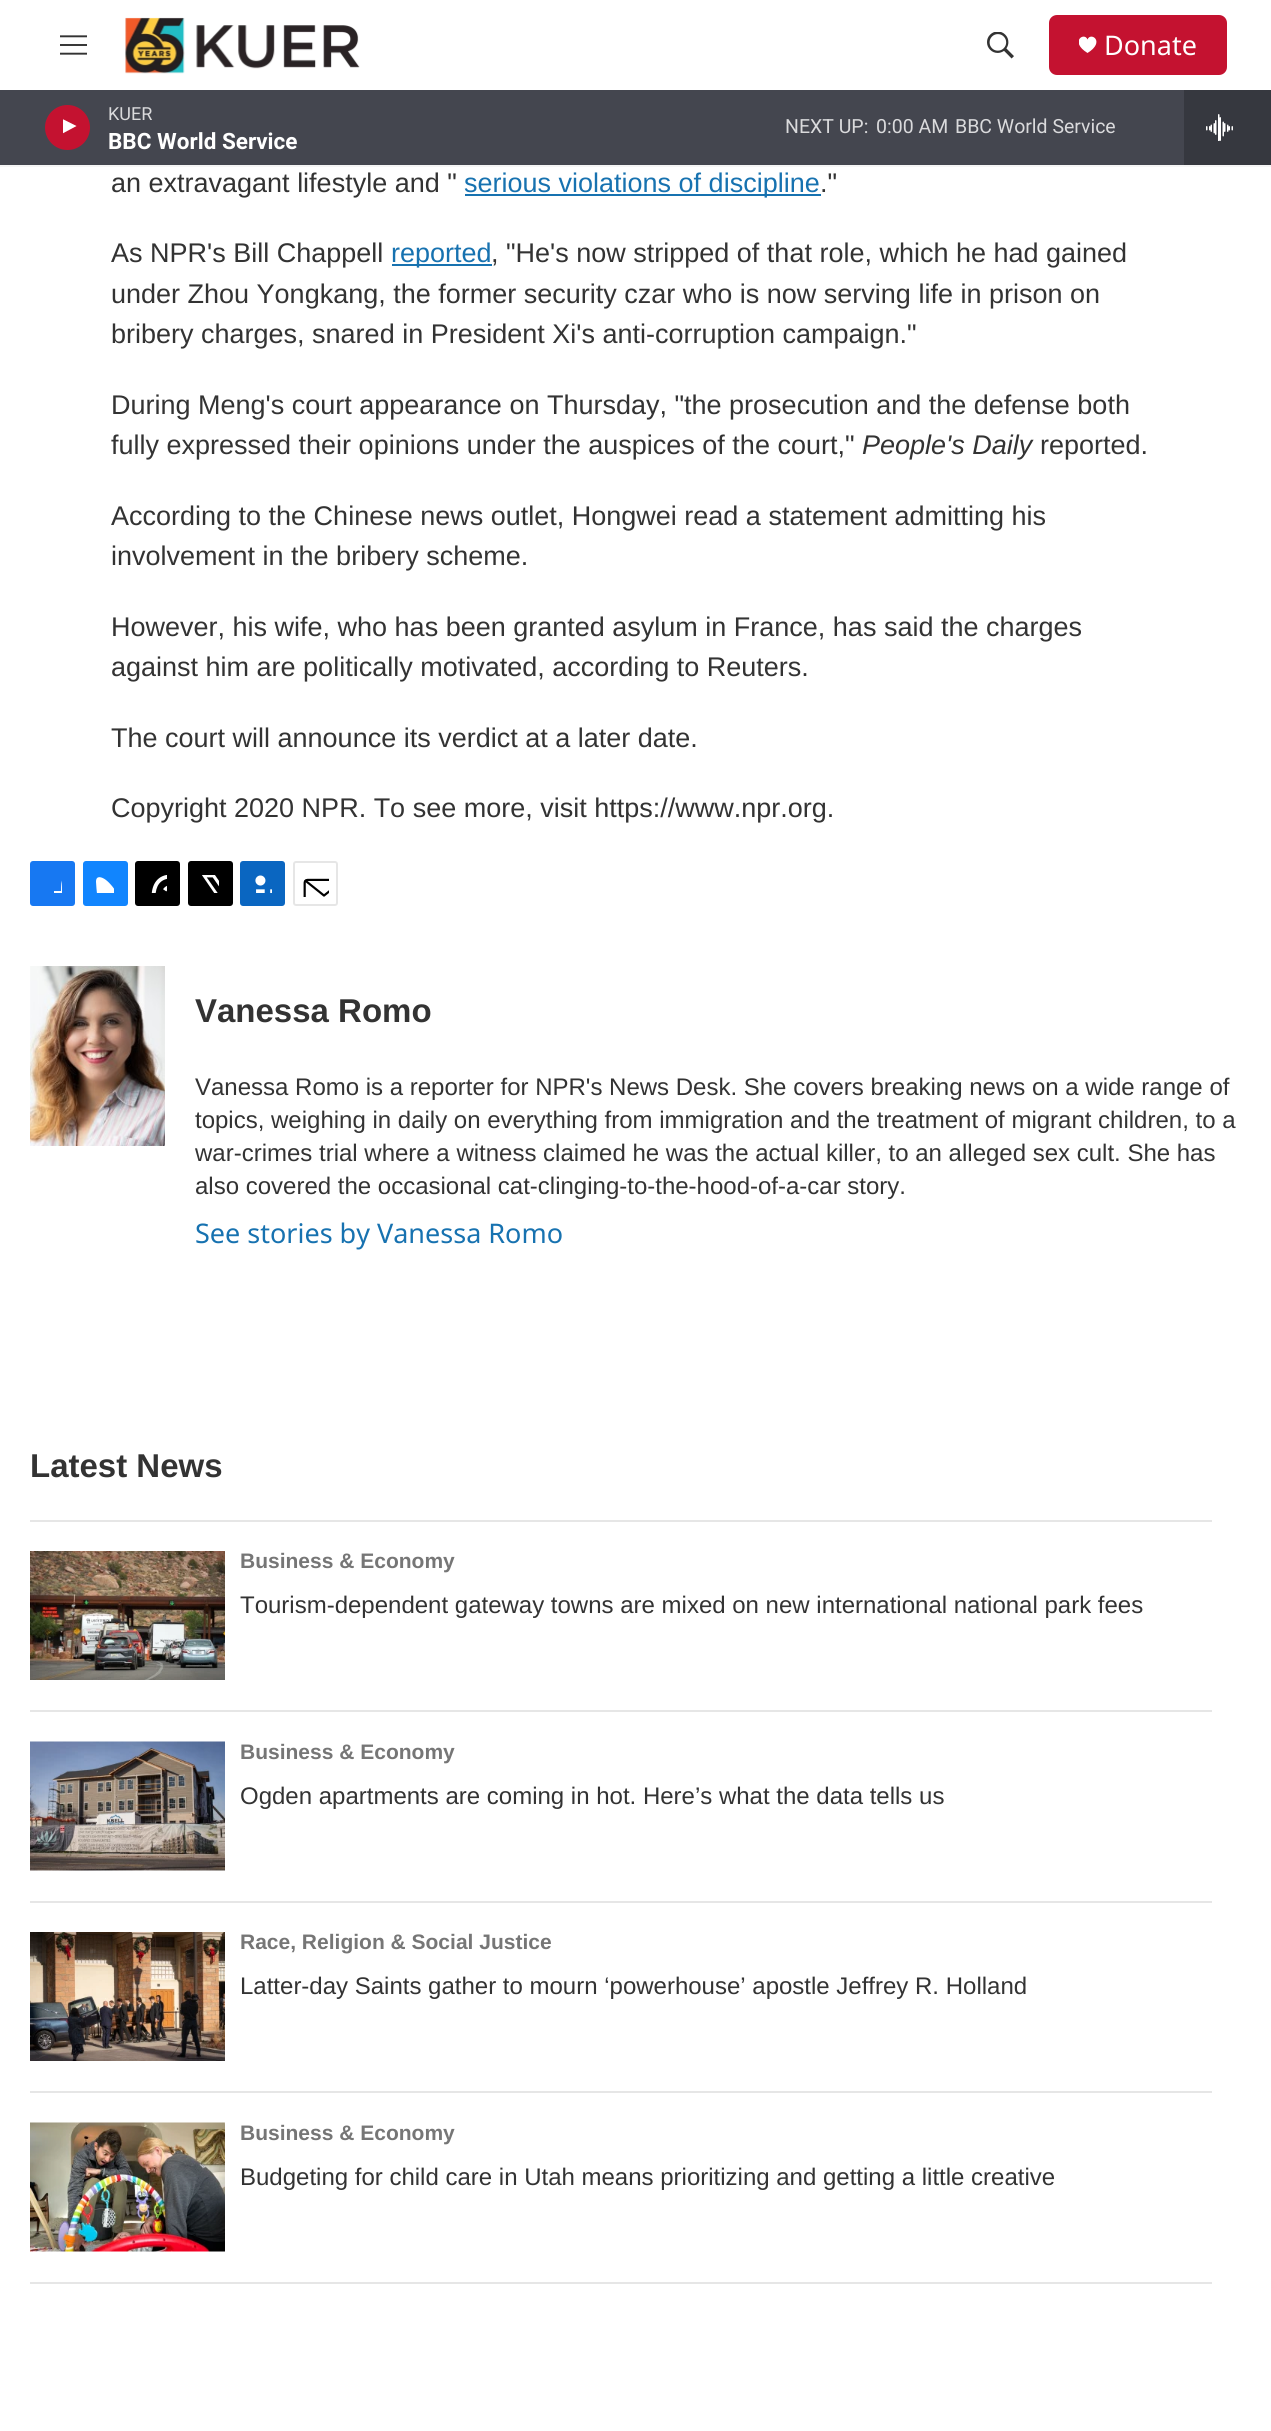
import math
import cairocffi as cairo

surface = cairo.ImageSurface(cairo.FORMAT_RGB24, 1271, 2431)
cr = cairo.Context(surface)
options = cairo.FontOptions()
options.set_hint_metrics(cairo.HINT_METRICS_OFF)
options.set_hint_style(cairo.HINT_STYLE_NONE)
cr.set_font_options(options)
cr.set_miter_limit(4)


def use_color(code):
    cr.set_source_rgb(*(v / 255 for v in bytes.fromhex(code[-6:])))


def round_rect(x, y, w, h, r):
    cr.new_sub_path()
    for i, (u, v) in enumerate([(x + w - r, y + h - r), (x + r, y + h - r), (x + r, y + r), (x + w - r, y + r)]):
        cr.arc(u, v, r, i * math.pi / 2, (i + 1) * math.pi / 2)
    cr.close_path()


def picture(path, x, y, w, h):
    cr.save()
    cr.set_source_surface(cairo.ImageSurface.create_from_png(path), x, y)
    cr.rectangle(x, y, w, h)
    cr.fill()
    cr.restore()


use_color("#ffffff")
cr.paint()
use_color("#f5f5f5")
cr.rectangle(0, 165, 1271, 2)
cr.fill()
picture("img1.png", 60, 35, 27, 20)
picture("img2.png", 125, 17, 235, 57)
picture("img3.png", 987, 32, 27, 27)
use_color("#c41230")
round_rect(1049, 15, 178, 60, 8)
cr.fill()
cr.save()
cr.rectangle(1079, 36, 18, 18)
cr.clip()
use_color("#ffffff")
cr.new_path()
cr.move_to(1087.5, 39.5)
cr.curve_to(1084.5, 31.5, 1069, 41.5, 1087.5, 53)
cr.curve_to(1106, 41.5, 1090.5, 31.5, 1087.5, 39.5)
cr.close_path()
cr.fill()
cr.restore()
cr.select_font_face("Noto Sans")
cr.set_font_size(27)
use_color("#ffffff")
cr.move_to(1104, 55)
cr.show_text("Donate")
use_color("#44464f")
cr.rectangle(0, 90, 1184, 75)
cr.fill()
use_color("#c41230")
cr.arc(67.5, 127.5, 22.5, 0, 2 * math.pi)
cr.fill()
cr.save()
cr.rectangle(63, 117, 17, 23)
cr.clip()
use_color("#ffffff")
cr.new_path()
cr.move_to(62.5, 119)
cr.line_to(76.5, 126)
cr.line_to(62.5, 133.5)
cr.close_path()
cr.fill()
cr.restore()
cr.select_font_face("Roboto")
cr.set_font_size(18)
use_color("#dadadc")
cr.move_to(108, 120)
cr.show_text("KUER")
cr.select_font_face("Roboto", cairo.FONT_SLANT_NORMAL, cairo.FONT_WEIGHT_BOLD)
cr.set_font_size(22.5)
use_color("#ffffff")
cr.move_to(108, 149)
cr.show_text("BBC World Service")
cr.select_font_face("Roboto")
cr.set_font_size(19.5)
use_color("#dadadc")
cr.move_to(785, 133)
cr.show_text("NEXT UP:")
cr.move_to(876, 133)
cr.show_text("0:00 AM")
cr.move_to(955, 133)
cr.show_text("BBC World Service")
use_color("#36383f")
cr.rectangle(1184, 90, 87, 75)
cr.fill()
picture("img4.png", 1206, 114, 27, 27)
cr.select_font_face("Liberation Sans")
cr.set_font_size(27)
use_color("#333333")
cr.move_to(111, 192)
cr.show_text("an extravagant lifestyle and \"")
use_color("#1772b0")
cr.rectangle(465, 194, 356, 2)
cr.fill()
cr.move_to(464, 192)
cr.show_text("serious violations of discipline")
use_color("#333333")
cr.move_to(820, 192)
cr.show_text(".\"")
cr.move_to(111, 262)
cr.show_text("As NPR's Bill Chappell")
use_color("#1772b0")
cr.rectangle(392, 264, 100, 2)
cr.fill()
cr.move_to(391, 262)
cr.show_text("reported")
use_color("#333333")
cr.move_to(491, 262)
cr.show_text(", \"He's now stripped of that role, which he had gained")
cr.move_to(111, 303)
cr.show_text("under Zhou Yongkang, the former security czar who is now serving life in prison on")
cr.move_to(111, 343)
cr.show_text("bribery charges, snared in President Xi's anti-corruption campaign.\"")
cr.move_to(111, 414)
cr.show_text("During Meng's court appearance on Thursday, \"the prosecution and the defense both")
cr.move_to(111, 454)
cr.show_text("fully expressed their opinions under the auspices of the court,\"")
cr.select_font_face("Liberation Sans", cairo.FONT_SLANT_ITALIC)
cr.move_to(862, 454)
cr.show_text("People's Daily")
cr.select_font_face("Liberation Sans")
cr.move_to(1040, 454)
cr.show_text("reported.")
cr.move_to(111, 525)
cr.show_text("According to the Chinese news outlet, Hongwei read a statement admitting his")
cr.move_to(111, 565)
cr.show_text("involvement in the bribery scheme.")
cr.move_to(111, 636)
cr.show_text("However, his wife, who has been granted asylum in France, has said the charges")
cr.move_to(111, 676)
cr.show_text("against him are politically motivated, according to Reuters.")
cr.move_to(111, 747)
cr.show_text("The court will announce its verdict at a later date.")
cr.move_to(111, 817)
cr.show_text("Copyright 2020 NPR. To see more, visit https://www.npr.org.")
use_color("#1778f2")
round_rect(30, 861, 45, 45, 3)
cr.fill()
cr.save()
cr.rectangle(44, 875, 18, 18)
cr.clip()
use_color("#ffffff")
cr.new_path()
cr.move_to(68, 906)
cr.line_to(61, 906)
cr.line_to(61, 899)
cr.line_to(54, 899)
cr.line_to(54, 891)
cr.line_to(61, 891)
cr.curve_to(61, 879.5, 62, 873.5, 75, 875)
cr.line_to(75, 882)
cr.curve_to(67, 882, 68, 884.5, 68, 891)
cr.line_to(75, 891)
cr.line_to(74, 899)
cr.line_to(68, 899)
cr.close_path()
cr.fill()
cr.restore()
use_color("#1185fe")
round_rect(83, 861, 45, 45, 3)
cr.fill()
picture("img5.png", 96, 877, 18, 16)
use_color("#000000")
round_rect(135, 861, 45, 45, 3)
cr.fill()
picture("img6.png", 151, 875, 16, 18)
round_rect(188, 861, 45, 45, 3)
cr.fill()
picture("img7.png", 202, 875, 17, 18)
use_color("#0a66c1")
round_rect(240, 861, 45, 45, 3)
cr.fill()
picture("img8.png", 255, 875, 17, 18)
round_rect(294, 862, 43, 43, 2)
use_color("#e6e6e6")
cr.stroke()
picture("img9.png", 303, 878, 26, 19)
picture("img10.png", 30, 966, 135, 180)
cr.select_font_face("Liberation Sans", cairo.FONT_SLANT_NORMAL, cairo.FONT_WEIGHT_BOLD)
cr.set_font_size(33)
use_color("#333333")
cr.move_to(195, 1022)
cr.show_text("Vanessa Romo")
cr.select_font_face("Liberation Sans")
cr.set_font_size(24)
cr.move_to(195, 1095)
cr.show_text("Vanessa Romo is a reporter for NPR's News Desk. She covers breaking news on a wide range of")
cr.move_to(195, 1128)
cr.show_text("topics, weighing in daily on everything from immigration and the treatment of migrant children, to a")
cr.move_to(195, 1161)
cr.show_text("war-crimes trial where a witness claimed he was the actual killer, to an alleged sex cult. She has")
cr.move_to(195, 1194)
cr.show_text("also covered the occasional cat-clinging-to-the-hood-of-a-car story.")
cr.select_font_face("Noto Sans")
cr.set_font_size(27)
use_color("#1772b0")
cr.move_to(195, 1243)
cr.show_text("See stories by Vanessa Romo")
use_color("#e6e6e6")
cr.rectangle(30, 1520, 1182, 2)
cr.fill()
cr.select_font_face("Liberation Sans", cairo.FONT_SLANT_NORMAL, cairo.FONT_WEIGHT_BOLD)
cr.set_font_size(33)
use_color("#333333")
cr.move_to(30, 1477)
cr.show_text("Latest News")
use_color("#e6e6e6")
cr.rectangle(30, 1710, 1182, 2)
cr.fill()
picture("img11.png", 30, 1551, 195, 129)
cr.set_font_size(21)
use_color("#767676")
cr.move_to(240, 1568)
cr.show_text("Business & Economy")
cr.select_font_face("Liberation Sans")
cr.set_font_size(24)
use_color("#333333")
cr.move_to(240, 1613)
cr.show_text("Tourism-dependent gateway towns are mixed on new international national park fees")
use_color("#e6e6e6")
cr.rectangle(30, 1901, 1182, 2)
cr.fill()
picture("img12.png", 30, 1741, 195, 130)
cr.select_font_face("Liberation Sans", cairo.FONT_SLANT_NORMAL, cairo.FONT_WEIGHT_BOLD)
cr.set_font_size(21)
use_color("#767676")
cr.move_to(240, 1759)
cr.show_text("Business & Economy")
cr.select_font_face("Liberation Sans")
cr.set_font_size(24)
use_color("#333333")
cr.move_to(240, 1804)
cr.show_text("Ogden apartments are coming in hot. Here’s what the data tells us")
use_color("#e6e6e6")
cr.rectangle(30, 2091, 1182, 2)
cr.fill()
picture("img13.png", 30, 1932, 195, 129)
cr.select_font_face("Liberation Sans", cairo.FONT_SLANT_NORMAL, cairo.FONT_WEIGHT_BOLD)
cr.set_font_size(21)
use_color("#767676")
cr.move_to(240, 1949)
cr.show_text("Race, Religion & Social Justice")
cr.select_font_face("Liberation Sans")
cr.set_font_size(24)
use_color("#333333")
cr.move_to(240, 1994)
cr.show_text("Latter-day Saints gather to mourn ‘powerhouse’ apostle Jeffrey R. Holland")
use_color("#e6e6e6")
cr.rectangle(30, 2282, 1182, 2)
cr.fill()
picture("img14.png", 30, 2122, 195, 130)
cr.select_font_face("Liberation Sans", cairo.FONT_SLANT_NORMAL, cairo.FONT_WEIGHT_BOLD)
cr.set_font_size(21)
use_color("#767676")
cr.move_to(240, 2140)
cr.show_text("Business & Economy")
cr.select_font_face("Liberation Sans")
cr.set_font_size(24)
use_color("#333333")
cr.move_to(240, 2185)
cr.show_text("Budgeting for child care in Utah means prioritizing and getting a little creative")
surface.write_to_png("result.png")
